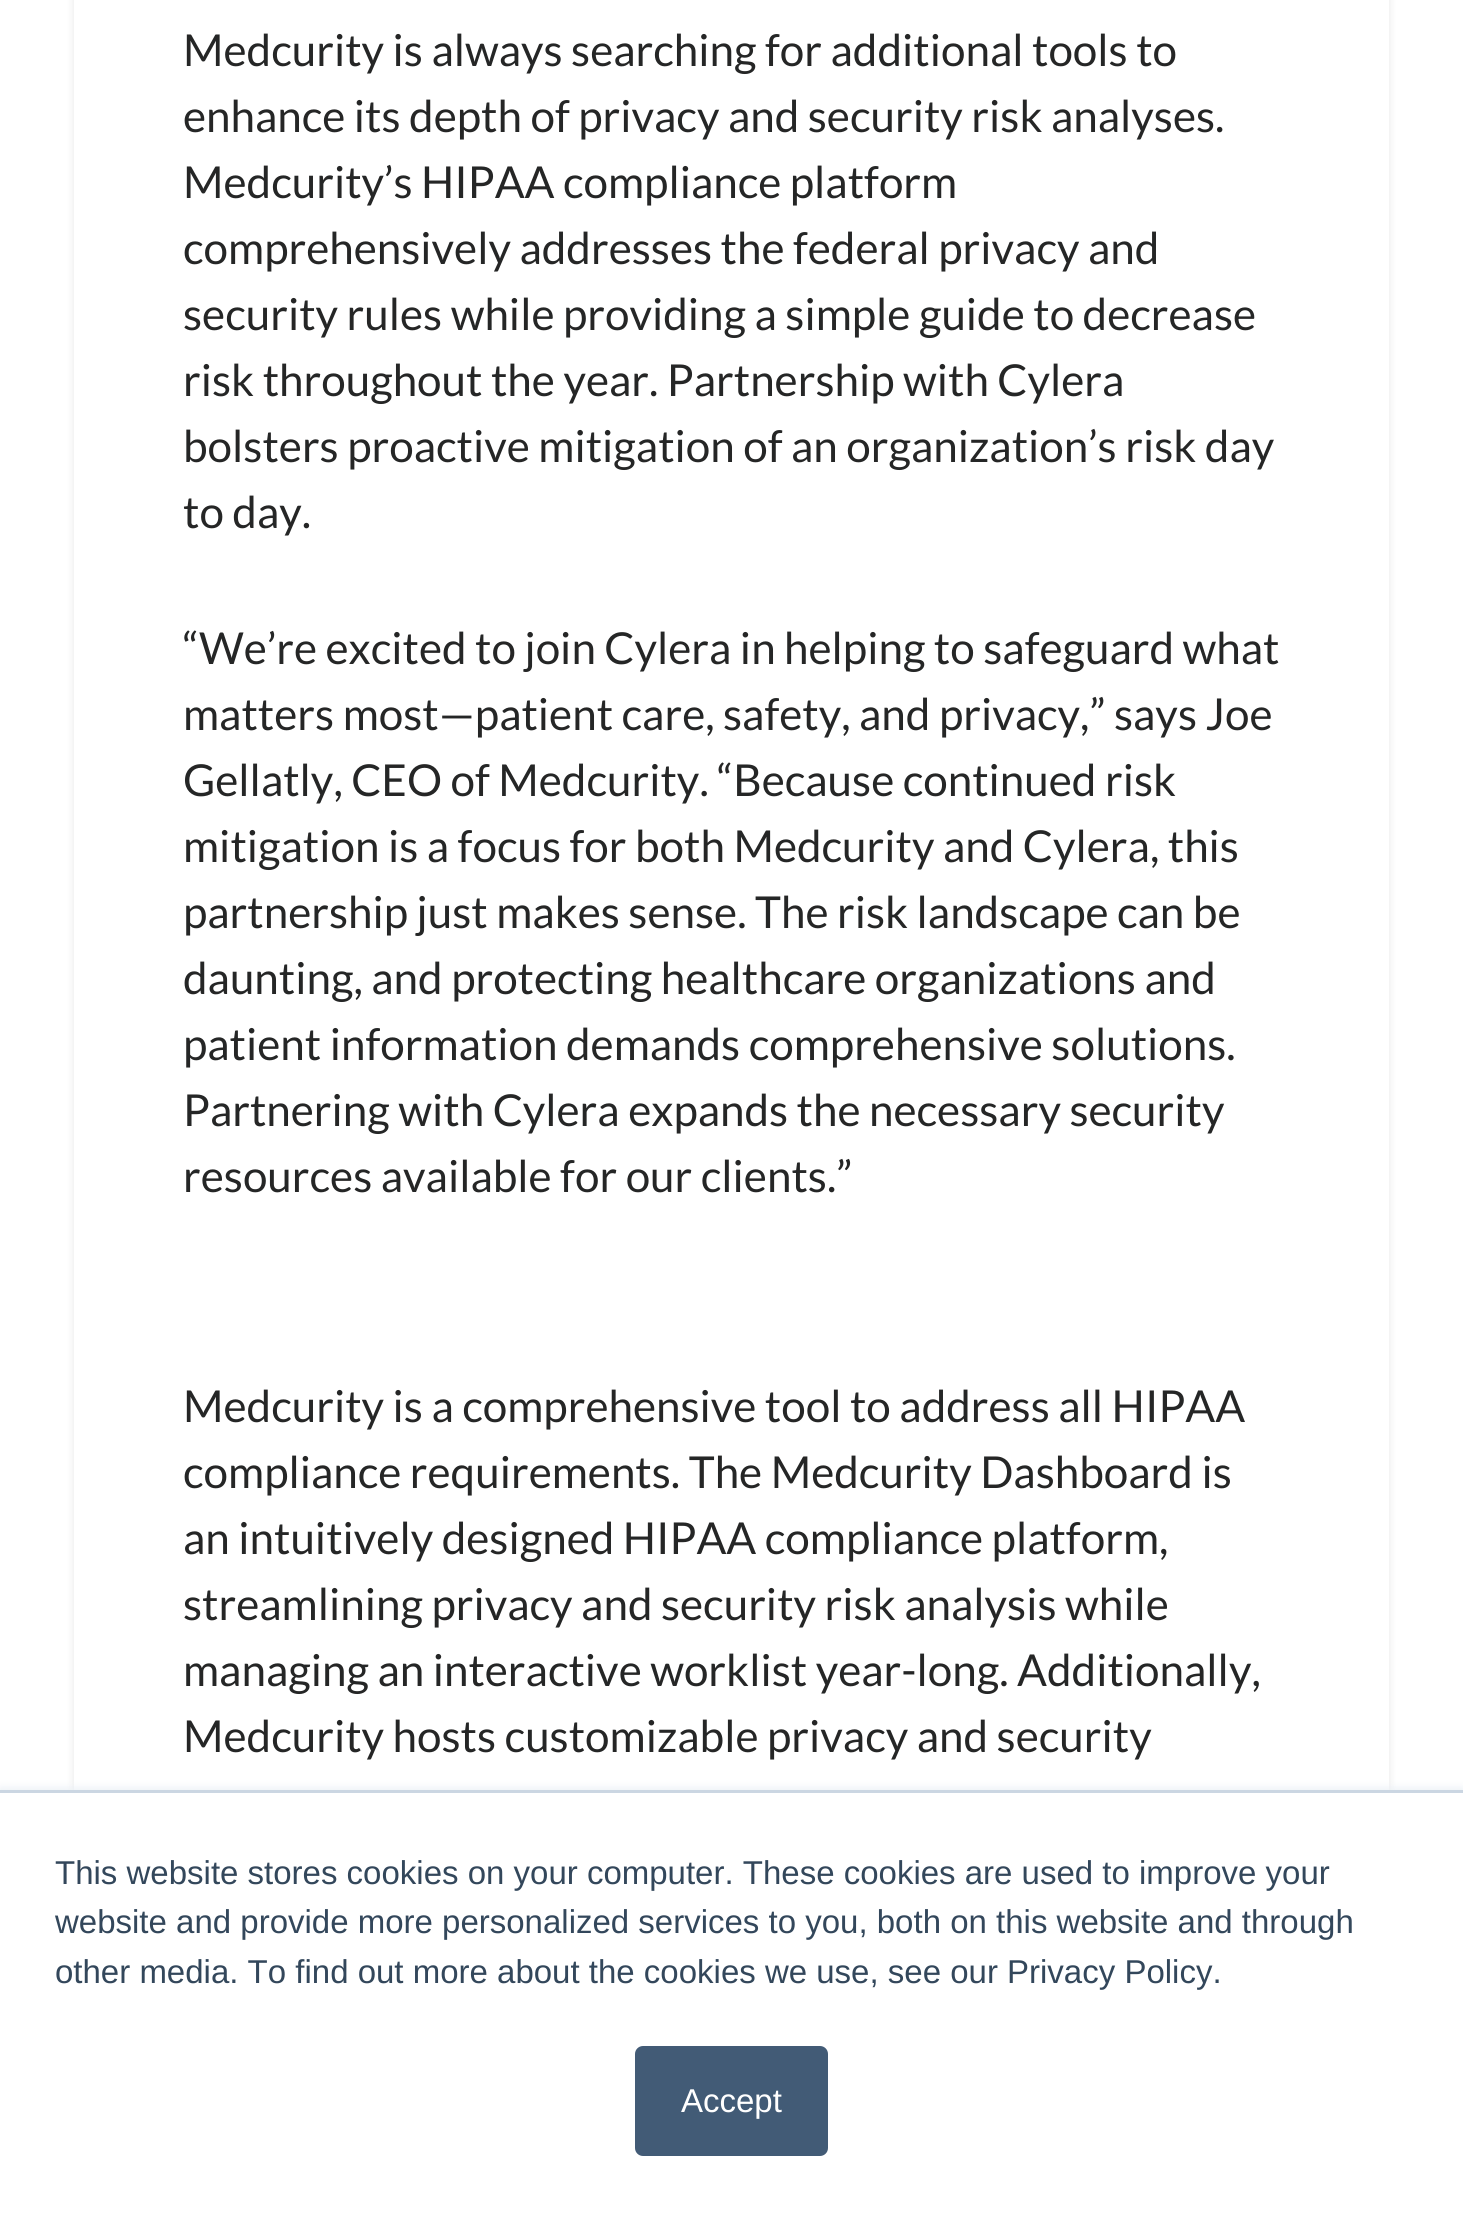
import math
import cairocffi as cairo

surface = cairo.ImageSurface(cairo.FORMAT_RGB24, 1463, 2227)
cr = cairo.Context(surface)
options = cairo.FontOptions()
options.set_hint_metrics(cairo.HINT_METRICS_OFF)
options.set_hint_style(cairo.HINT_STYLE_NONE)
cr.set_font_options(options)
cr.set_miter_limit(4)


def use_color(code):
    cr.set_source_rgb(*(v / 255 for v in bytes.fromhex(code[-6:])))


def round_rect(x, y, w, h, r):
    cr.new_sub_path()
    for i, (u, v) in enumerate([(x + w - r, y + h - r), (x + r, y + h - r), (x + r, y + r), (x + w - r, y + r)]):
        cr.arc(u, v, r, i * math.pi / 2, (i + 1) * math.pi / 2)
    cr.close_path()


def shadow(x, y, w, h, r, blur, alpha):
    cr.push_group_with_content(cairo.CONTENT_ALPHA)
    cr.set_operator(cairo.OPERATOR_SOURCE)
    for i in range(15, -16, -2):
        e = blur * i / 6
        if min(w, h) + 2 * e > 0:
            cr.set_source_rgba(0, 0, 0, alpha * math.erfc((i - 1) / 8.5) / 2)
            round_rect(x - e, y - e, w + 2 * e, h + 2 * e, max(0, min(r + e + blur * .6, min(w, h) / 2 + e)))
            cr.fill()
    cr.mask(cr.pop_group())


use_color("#ffffff")
cr.paint()
use_color("#000000")
shadow(74, -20, 1315, 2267, 8, 4, 0.1)
use_color("#ffffff")
cr.rectangle(74, 0, 1315, 1790)
cr.fill()
cr.select_font_face("Lato")
cr.set_font_size(44)
use_color("#252626")
cr.move_to(183, 66)
cr.show_text("Medcurity is always searching for additional tools to")
cr.move_to(183, 132)
cr.show_text("enhance its depth of privacy and security risk analyses.")
cr.move_to(183, 198)
cr.show_text("Medcurity’s HIPAA compliance platform")
cr.move_to(183, 264)
cr.show_text("comprehensively addresses the federal privacy and")
cr.move_to(183, 330)
cr.show_text("security rules while providing a simple guide to decrease")
cr.move_to(183, 396)
cr.show_text("risk throughout the year. Partnership with Cylera")
cr.move_to(183, 462)
cr.show_text("bolsters proactive mitigation of an organization’s risk day")
cr.move_to(183, 528)
cr.show_text("to day.")
cr.move_to(183, 664)
cr.show_text("“We’re excited to join Cylera in helping to safeguard what")
cr.move_to(183, 730)
cr.show_text("matters most—patient care, safety, and privacy,” says Joe")
cr.move_to(183, 796)
cr.show_text("Gellatly, CEO of Medcurity. “Because continued risk")
cr.move_to(183, 862)
cr.show_text("mitigation is a focus for both Medcurity and Cylera, this")
cr.move_to(183, 928)
cr.show_text("partnership just makes sense. The risk landscape can be")
cr.move_to(183, 994)
cr.show_text("daunting, and protecting healthcare organizations and")
cr.move_to(183, 1060)
cr.show_text("patient information demands comprehensive solutions.")
cr.move_to(183, 1126)
cr.show_text("Partnering with Cylera expands the necessary security")
cr.move_to(183, 1192)
cr.show_text("resources available for our clients.”")
cr.move_to(183, 1422)
cr.show_text("Medcurity is a comprehensive tool to address all HIPAA")
cr.move_to(183, 1488)
cr.show_text("compliance requirements. The Medcurity Dashboard is")
cr.move_to(183, 1554)
cr.show_text("an intuitively designed HIPAA compliance platform,")
cr.move_to(183, 1620)
cr.show_text("streamlining privacy and security risk analysis while")
cr.move_to(183, 1686)
cr.show_text("managing an interactive worklist year-long. Additionally,")
cr.move_to(183, 1752)
cr.show_text("Medcurity hosts customizable privacy and security")
use_color("#eaf0f6")
shadow(0, 1788, 1463, 437, 0, 4, 1)
use_color("#ffffff")
cr.rectangle(0, 1793, 1463, 434)
cr.fill()
use_color("#cbd6e2")
cr.rectangle(0, 1790, 1463, 3)
cr.fill()
cr.select_font_face("Liberation Sans")
cr.set_font_size(33)
use_color("#33475b")
cr.move_to(55, 1884)
cr.show_text("This website stores cookies on your computer. These cookies are used to improve your")
cr.move_to(55, 1933)
cr.show_text("website and provide more personalized services to you, both on this website and through")
cr.move_to(55, 1983)
cr.show_text("other media. To find out more about the cookies we use, see our Privacy Policy.")
use_color("#425b76")
round_rect(636.5, 2047.5, 190, 107, 6.5)
cr.fill_preserve()
cr.set_line_width(3)
cr.stroke()
use_color("#ffffff")
cr.move_to(681, 2112)
cr.show_text("Accept")
surface.write_to_png("result.png")
